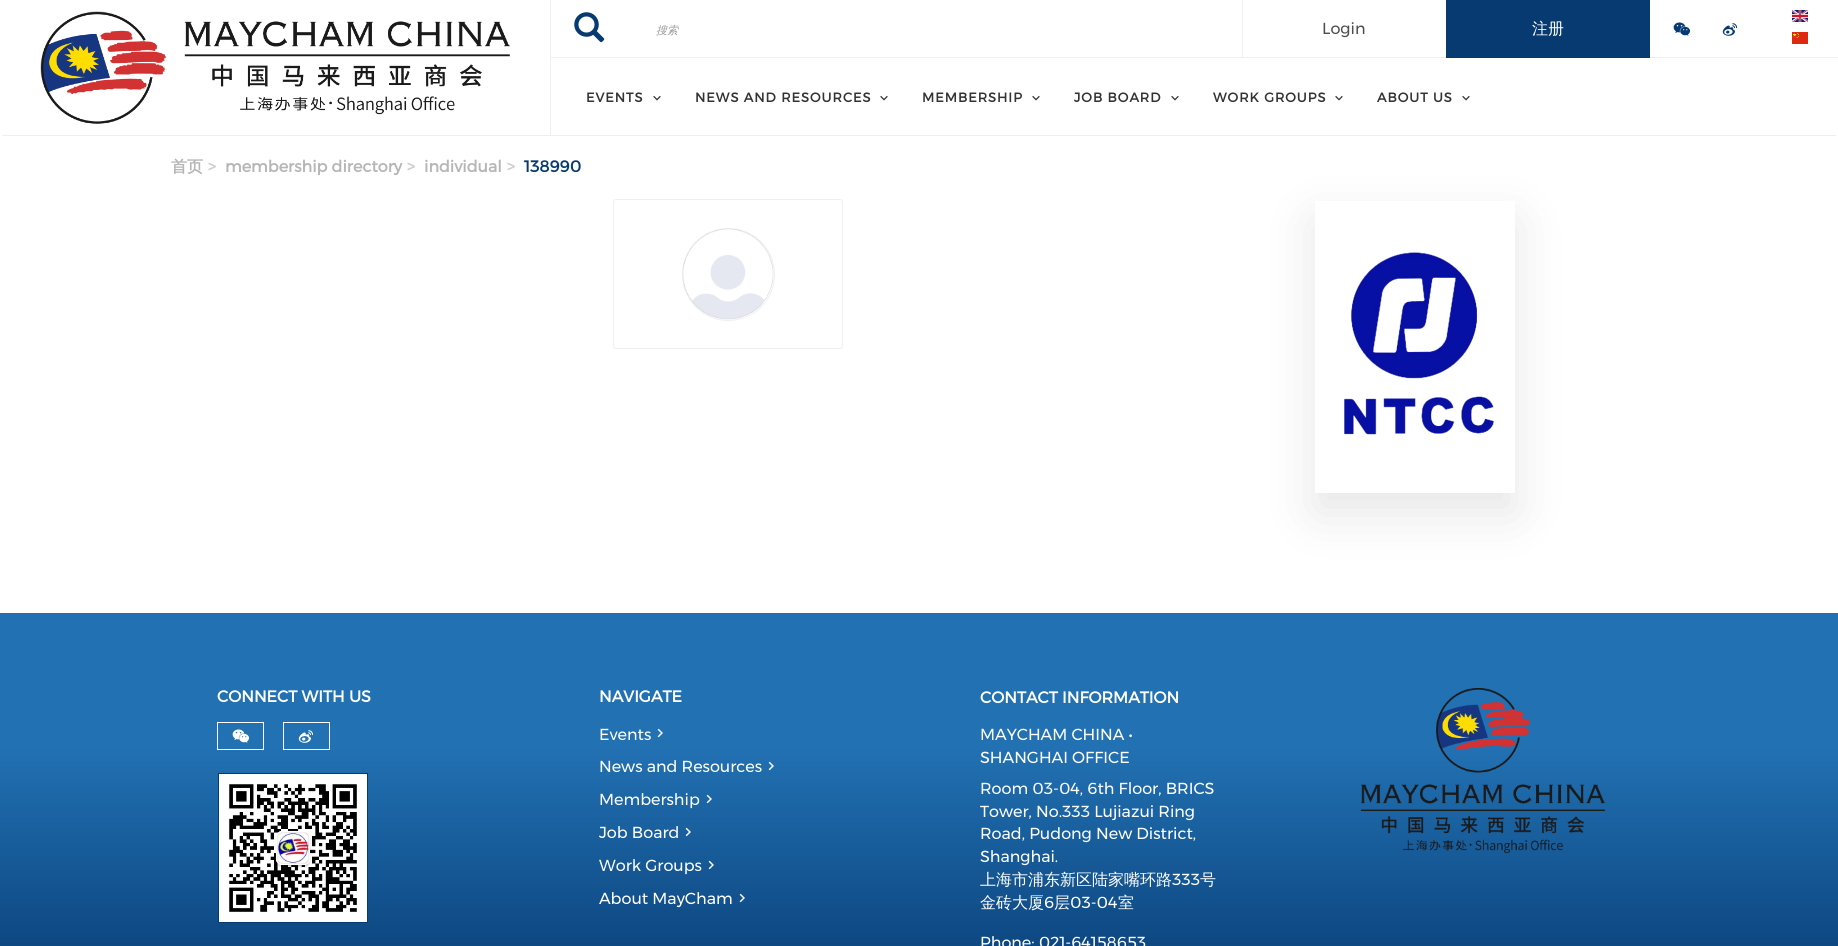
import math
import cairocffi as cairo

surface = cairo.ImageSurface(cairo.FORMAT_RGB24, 1838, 946)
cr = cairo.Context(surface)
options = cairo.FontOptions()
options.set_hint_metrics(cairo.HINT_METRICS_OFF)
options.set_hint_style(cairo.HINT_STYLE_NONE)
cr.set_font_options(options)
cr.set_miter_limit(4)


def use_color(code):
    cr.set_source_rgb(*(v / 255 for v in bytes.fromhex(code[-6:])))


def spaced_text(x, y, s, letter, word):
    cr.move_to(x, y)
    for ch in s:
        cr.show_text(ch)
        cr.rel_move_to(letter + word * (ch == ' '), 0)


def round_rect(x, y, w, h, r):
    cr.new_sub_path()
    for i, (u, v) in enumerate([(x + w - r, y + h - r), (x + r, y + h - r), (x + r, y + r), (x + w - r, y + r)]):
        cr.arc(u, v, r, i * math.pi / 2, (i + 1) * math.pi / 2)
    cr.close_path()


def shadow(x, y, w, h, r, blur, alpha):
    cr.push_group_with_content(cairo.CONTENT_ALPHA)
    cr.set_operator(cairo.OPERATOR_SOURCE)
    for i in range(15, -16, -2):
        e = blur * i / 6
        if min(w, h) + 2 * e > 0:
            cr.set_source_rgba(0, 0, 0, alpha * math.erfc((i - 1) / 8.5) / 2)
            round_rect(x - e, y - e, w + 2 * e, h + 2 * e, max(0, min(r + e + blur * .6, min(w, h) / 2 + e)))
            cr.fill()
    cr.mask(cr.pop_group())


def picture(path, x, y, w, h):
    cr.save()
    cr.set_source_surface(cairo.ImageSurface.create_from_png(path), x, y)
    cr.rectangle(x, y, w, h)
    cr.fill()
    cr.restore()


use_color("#ffffff")
cr.paint()
use_color("#efefef")
cr.rectangle(2, 135, 1834, 1)
cr.fill()
cr.rectangle(550, 0, 1, 136)
cr.fill()
picture("img1.png", 40, 11, 470, 113)
cr.rectangle(551, 57, 1287, 1)
cr.fill()
picture("img2.png", 574, 12, 31, 31)
cr.select_font_face("WenQuanYi Zen Hei Medium", cairo.FONT_SLANT_ITALIC)
cr.set_font_size(11)
use_color("#999999")
cr.move_to(656, 34)
cr.show_text("搜索")
use_color("#efefef")
cr.rectangle(1242, 0, 1, 58)
cr.fill()
cr.select_font_face("Montserrat")
cr.set_font_size(16)
use_color("#4d4d4d")
cr.move_to(1322, 34)
cr.show_text("Login")
use_color("#063a71")
cr.rectangle(1446, 0, 204, 58)
cr.fill()
cr.select_font_face("WenQuanYi Zen Hei Medium")
use_color("#ffffff")
cr.move_to(1532, 34)
cr.show_text("注册")
picture("img3.png", 1673, 22, 17, 14)
cr.select_font_face("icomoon")
cr.set_font_size(26)
use_color("#063a71")
cr.move_to(1717, 40)
cr.show_text("4")
picture("img4.png", 1792, 10, 16, 12)
picture("img5.png", 1792, 32, 16, 12)
cr.select_font_face("Montserrat", cairo.FONT_SLANT_NORMAL, cairo.FONT_WEIGHT_BOLD)
cr.set_font_size(13)
use_color("#333333")
spaced_text(586, 102, "EVENTS", 1, 0)
cr.select_font_face("icomoon")
cr.set_font_size(16)
spaced_text(649, 105, "9", 1, 0)
cr.select_font_face("Montserrat", cairo.FONT_SLANT_NORMAL, cairo.FONT_WEIGHT_BOLD)
cr.set_font_size(13)
spaced_text(695, 102, "NEWS AND RESOURCES", 1, 0)
cr.select_font_face("icomoon")
cr.set_font_size(16)
spaced_text(876, 105, "9", 1, 0)
cr.select_font_face("Montserrat", cairo.FONT_SLANT_NORMAL, cairo.FONT_WEIGHT_BOLD)
cr.set_font_size(13)
spaced_text(922, 102, "MEMBERSHIP", 1, 0)
cr.select_font_face("icomoon")
cr.set_font_size(16)
spaced_text(1028, 105, "9", 1, 0)
cr.select_font_face("Montserrat", cairo.FONT_SLANT_NORMAL, cairo.FONT_WEIGHT_BOLD)
cr.set_font_size(13)
spaced_text(1074, 102, "JOB BOARD", 1, 0)
cr.select_font_face("icomoon")
cr.set_font_size(16)
spaced_text(1167, 105, "9", 1, 0)
cr.select_font_face("Montserrat", cairo.FONT_SLANT_NORMAL, cairo.FONT_WEIGHT_BOLD)
cr.set_font_size(13)
spaced_text(1213, 102, "WORK GROUPS", 1, 0)
cr.select_font_face("icomoon")
cr.set_font_size(16)
spaced_text(1331, 105, "9", 1, 0)
cr.select_font_face("Montserrat", cairo.FONT_SLANT_NORMAL, cairo.FONT_WEIGHT_BOLD)
cr.set_font_size(13)
spaced_text(1377, 102, "ABOUT US", 1, 0)
cr.select_font_face("icomoon")
cr.set_font_size(16)
spaced_text(1458, 105, "9", 1, 0)
cr.select_font_face("WenQuanYi Zen Hei", cairo.FONT_SLANT_NORMAL, cairo.FONT_WEIGHT_BOLD)
use_color("#b6b6b6")
cr.move_to(171, 172)
cr.show_text("首页")
cr.select_font_face("Montserrat", cairo.FONT_SLANT_NORMAL, cairo.FONT_WEIGHT_BOLD)
use_color("#cccccc")
cr.move_to(208, 172)
cr.show_text(">")
use_color("#b6b6b6")
cr.move_to(225, 172)
cr.show_text("membership directory")
use_color("#cccccc")
cr.move_to(407, 172)
cr.show_text(">")
use_color("#b6b6b6")
cr.move_to(424, 172)
cr.show_text("individual")
use_color("#cccccc")
cr.move_to(507, 172)
cr.show_text(">")
use_color("#063a71")
cr.move_to(524, 172)
cr.show_text("138990")
round_rect(613.5, 199.5, 229, 149, 2.5)
use_color("#efefef")
cr.set_line_width(1)
cr.stroke()
cr.arc(728.5, 274.5, 46, 0, 2 * math.pi)
cr.stroke()
picture("img6.png", 682, 228, 92, 92)
cr.save()
cr.set_fill_rule(cairo.FILL_RULE_EVEN_ODD)
cr.new_path()
cr.move_to(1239, 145)
cr.line_to(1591, 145)
cr.line_to(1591, 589)
cr.line_to(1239, 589)
cr.close_path()
cr.move_to(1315, 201)
cr.line_to(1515, 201)
cr.line_to(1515, 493)
cr.line_to(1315, 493)
cr.close_path()
cr.clip()
use_color("#000000")
shadow(1315, 221, 200, 292, 0, 25, 0.1)
cr.restore()
picture("img7.png", 1344, 252, 150, 183)
gradient = cairo.LinearGradient(919, 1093, 919, 613)
gradient.add_color_stop_rgba(0.16, 0.024, 0.224, 0.443, 1)
gradient.add_color_stop_rgba(0.72, 0.133, 0.443, 0.702, 1)
cr.set_source(gradient)
cr.rectangle(0, 613, 1838, 333)
cr.fill()
use_color("#ffffff")
cr.move_to(217, 702)
cr.show_text("CONNECT WITH US")
cr.rectangle(217.5, 722.5, 46, 27)
cr.stroke()
picture("img8.png", 232, 729, 17, 14)
cr.rectangle(218.5, 773.5, 149, 149)
use_color("#063a71")
cr.stroke()
picture("img9.png", 219, 774, 148, 148)
cr.rectangle(283.5, 722.5, 46, 27)
use_color("#ffffff")
cr.stroke()
cr.select_font_face("icomoon")
cr.set_font_size(26)
cr.move_to(293, 747)
cr.show_text("4")
cr.select_font_face("Montserrat", cairo.FONT_SLANT_NORMAL, cairo.FONT_WEIGHT_BOLD)
cr.set_font_size(16)
cr.move_to(599, 702)
cr.show_text("NAVIGATE")
cr.select_font_face("Montserrat")
cr.move_to(599, 740)
cr.show_text("Events")
cr.select_font_face("icomoon")
cr.set_font_size(18)
cr.save()
cr.translate(668, 742)
cr.rotate(-90 * math.pi / 180)
cr.move_to(0, 0)
cr.show_text("9")
cr.restore()
cr.select_font_face("Montserrat")
cr.set_font_size(16)
cr.move_to(599, 772)
cr.show_text("News and Resources")
cr.select_font_face("icomoon")
cr.set_font_size(18)
cr.save()
cr.translate(779, 775)
cr.rotate(-90 * math.pi / 180)
cr.move_to(0, 0)
cr.show_text("9")
cr.restore()
cr.select_font_face("Montserrat")
cr.set_font_size(16)
cr.move_to(599, 805)
cr.show_text("Membership")
cr.select_font_face("icomoon")
cr.set_font_size(18)
cr.save()
cr.translate(717, 808)
cr.rotate(-90 * math.pi / 180)
cr.move_to(0, 0)
cr.show_text("9")
cr.restore()
cr.select_font_face("Montserrat")
cr.set_font_size(16)
cr.move_to(599, 838)
cr.show_text("Job Board")
cr.select_font_face("icomoon")
cr.set_font_size(18)
cr.save()
cr.translate(696, 841)
cr.rotate(-90 * math.pi / 180)
cr.move_to(0, 0)
cr.show_text("9")
cr.restore()
cr.select_font_face("Montserrat")
cr.set_font_size(16)
cr.move_to(599, 871)
cr.show_text("Work Groups")
cr.select_font_face("icomoon")
cr.set_font_size(18)
cr.save()
cr.translate(719, 874)
cr.rotate(-90 * math.pi / 180)
cr.move_to(0, 0)
cr.show_text("9")
cr.restore()
cr.select_font_face("Montserrat")
cr.set_font_size(16)
cr.move_to(599, 904)
cr.show_text("About MayCham")
cr.select_font_face("icomoon")
cr.set_font_size(18)
cr.save()
cr.translate(750, 907)
cr.rotate(-90 * math.pi / 180)
cr.move_to(0, 0)
cr.show_text("9")
cr.restore()
cr.select_font_face("Montserrat", cairo.FONT_SLANT_NORMAL, cairo.FONT_WEIGHT_BOLD)
cr.set_font_size(16)
cr.move_to(980, 703)
cr.show_text("CONTACT INFORMATION")
cr.select_font_face("Montserrat")
cr.move_to(980, 740)
cr.show_text("MAYCHAM CHINA •")
cr.move_to(980, 763)
cr.show_text("SHANGHAI OFFICE")
cr.move_to(980, 794)
cr.show_text("Room 03-04, 6th Floor, BRICS")
cr.move_to(980, 817)
cr.show_text("Tower, No.333 Lujiazui Ring")
cr.move_to(980, 839)
cr.show_text("Road, Pudong New District,")
cr.move_to(980, 862)
cr.show_text("Shanghai.")
cr.select_font_face("WenQuanYi Zen Hei Medium")
cr.move_to(980, 885)
cr.show_text("上海市浦东新区陆家嘴环路")
cr.select_font_face("Montserrat")
cr.move_to(1172, 885)
cr.show_text("333")
cr.select_font_face("WenQuanYi Zen Hei Medium")
cr.move_to(1200, 885)
cr.show_text("号")
cr.move_to(980, 908)
cr.show_text("金砖大厦")
cr.select_font_face("Montserrat")
cr.move_to(1044, 908)
cr.show_text("6")
cr.select_font_face("WenQuanYi Zen Hei Medium")
cr.move_to(1054, 908)
cr.show_text("层")
cr.select_font_face("Montserrat")
cr.move_to(1070, 908)
cr.show_text("03-04")
cr.select_font_face("WenQuanYi Zen Hei Medium")
cr.move_to(1118, 908)
cr.show_text("室")
cr.select_font_face("Montserrat")
cr.move_to(980, 948)
cr.show_text("Phone: 021-64158653")
picture("img10.png", 1361, 688, 244, 165)
surface.write_to_png("result.png")
